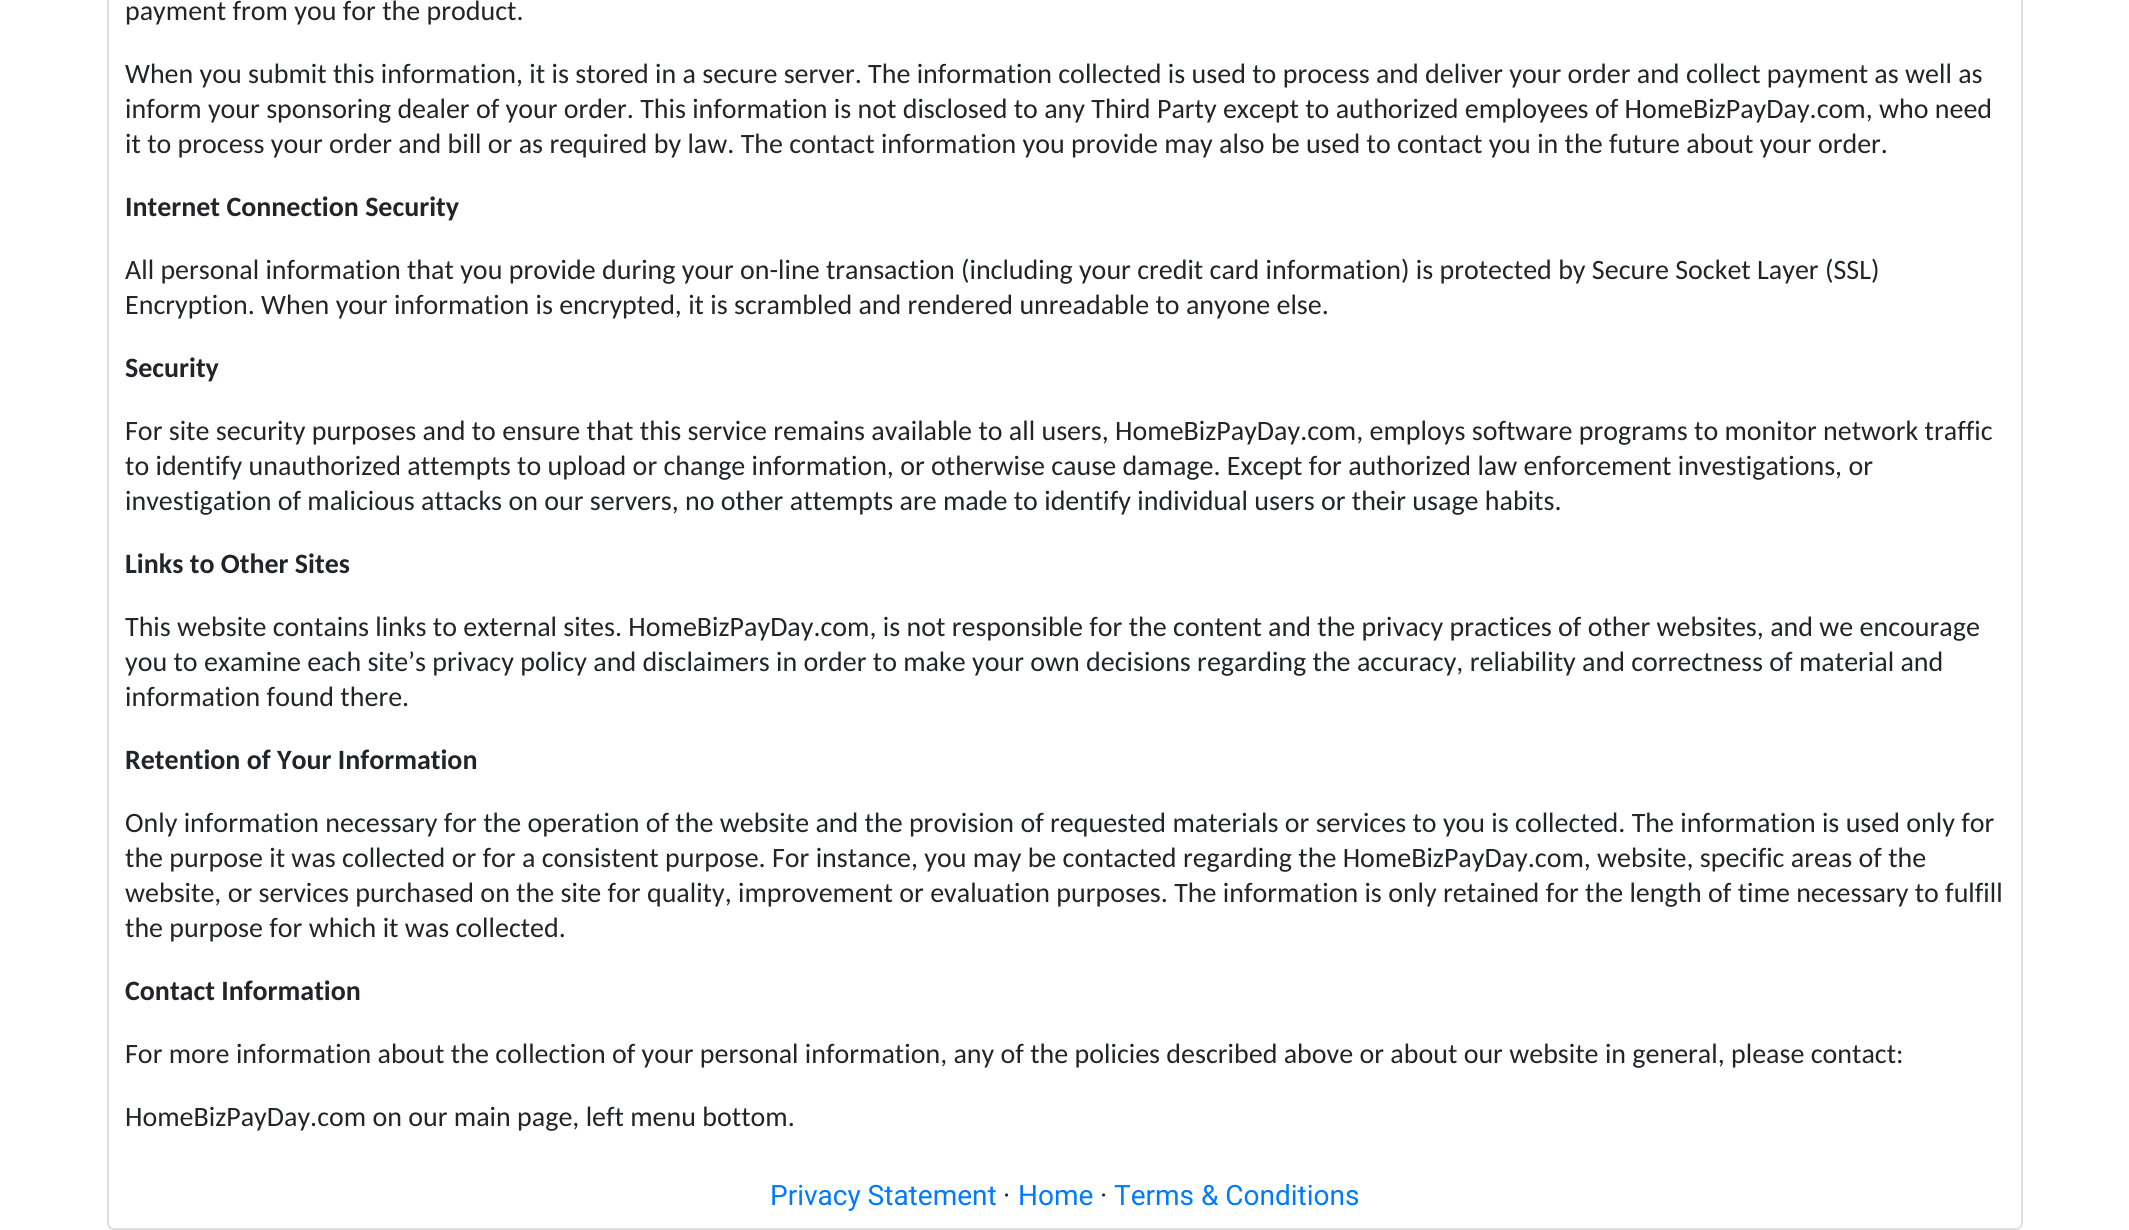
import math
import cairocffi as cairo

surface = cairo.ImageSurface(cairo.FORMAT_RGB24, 2129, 1230)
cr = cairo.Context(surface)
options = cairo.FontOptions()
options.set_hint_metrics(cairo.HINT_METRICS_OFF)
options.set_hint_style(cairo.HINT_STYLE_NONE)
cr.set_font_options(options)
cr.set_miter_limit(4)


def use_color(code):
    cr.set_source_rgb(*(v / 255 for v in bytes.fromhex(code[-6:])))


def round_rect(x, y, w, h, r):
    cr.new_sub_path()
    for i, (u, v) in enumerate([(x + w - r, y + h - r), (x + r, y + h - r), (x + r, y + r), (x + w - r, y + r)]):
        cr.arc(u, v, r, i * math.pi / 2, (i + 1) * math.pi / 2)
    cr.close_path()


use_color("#ffffff")
cr.paint()
round_rect(108, -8, 1914, 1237, 6)
use_color("#dfdfdf")
cr.stroke()
cr.select_font_face("Carlito")
cr.set_font_size(28)
use_color("#212529")
cr.move_to(125, 20)
cr.show_text("payment from you for the product.")
cr.move_to(125, 83)
cr.show_text("When you submit this information, it is stored in a secure server. The information collected is used to process and deliver your order and collect payment as well as")
cr.move_to(125, 118)
cr.show_text("inform your sponsoring dealer of your order. This information is not disclosed to any Third Party except to authorized employees of HomeBizPayDay.com, who need")
cr.move_to(125, 153)
cr.show_text("it to process your order and bill or as required by law. The contact information you provide may also be used to contact you in the future about your order.")
cr.select_font_face("Carlito", cairo.FONT_SLANT_NORMAL, cairo.FONT_WEIGHT_BOLD)
cr.move_to(125, 216)
cr.show_text("Internet Connection Security")
cr.select_font_face("Carlito")
cr.move_to(125, 279)
cr.show_text("All personal information that you provide during your on-line transaction (including your credit card information) is protected by Secure Socket Layer (SSL)")
cr.move_to(125, 314)
cr.show_text("Encryption. When your information is encrypted, it is scrambled and rendered unreadable to anyone else.")
cr.select_font_face("Carlito", cairo.FONT_SLANT_NORMAL, cairo.FONT_WEIGHT_BOLD)
cr.move_to(125, 377)
cr.show_text("Security")
cr.select_font_face("Carlito")
cr.move_to(125, 440)
cr.show_text("For site security purposes and to ensure that this service remains available to all users, HomeBizPayDay.com, employs software programs to monitor network traffic")
cr.move_to(125, 475)
cr.show_text("to identify unauthorized attempts to upload or change information, or otherwise cause damage. Except for authorized law enforcement investigations, or")
cr.move_to(125, 510)
cr.show_text("investigation of malicious attacks on our servers, no other attempts are made to identify individual users or their usage habits.")
cr.select_font_face("Carlito", cairo.FONT_SLANT_NORMAL, cairo.FONT_WEIGHT_BOLD)
cr.move_to(125, 573)
cr.show_text("Links to Other Sites")
cr.select_font_face("Carlito")
cr.move_to(125, 636)
cr.show_text("This website contains links to external sites. HomeBizPayDay.com, is not responsible for the content and the privacy practices of other websites, and we encourage")
cr.move_to(125, 671)
cr.show_text("you to examine each site’s privacy policy and disclaimers in order to make your own decisions regarding the accuracy, reliability and correctness of material and")
cr.move_to(125, 706)
cr.show_text("information found there.")
cr.select_font_face("Carlito", cairo.FONT_SLANT_NORMAL, cairo.FONT_WEIGHT_BOLD)
cr.move_to(125, 769)
cr.show_text("Retention of Your Information")
cr.select_font_face("Carlito")
cr.move_to(125, 832)
cr.show_text("Only information necessary for the operation of the website and the provision of requested materials or services to you is collected. The information is used only for")
cr.move_to(125, 867)
cr.show_text("the purpose it was collected or for a consistent purpose. For instance, you may be contacted regarding the HomeBizPayDay.com, website, specific areas of the")
cr.move_to(125, 902)
cr.show_text("website, or services purchased on the site for quality, improvement or evaluation purposes. The information is only retained for the length of time necessary to fulfill")
cr.move_to(125, 937)
cr.show_text("the purpose for which it was collected.")
cr.select_font_face("Carlito", cairo.FONT_SLANT_NORMAL, cairo.FONT_WEIGHT_BOLD)
cr.move_to(125, 1000)
cr.show_text("Contact Information")
cr.select_font_face("Carlito")
cr.move_to(125, 1063)
cr.show_text("For more information about the collection of your personal information, any of the policies described above or about our website in general, please contact:")
cr.move_to(125, 1126)
cr.show_text("HomeBizPayDay.com on our main page, left menu bottom.")
cr.select_font_face("Roboto")
use_color("#007bff")
cr.move_to(770, 1205)
cr.show_text("Privacy Statement")
use_color("#212529")
cr.move_to(1003, 1205)
cr.show_text("·")
use_color("#007bff")
cr.move_to(1018, 1205)
cr.show_text("Home")
use_color("#212529")
cr.move_to(1100, 1205)
cr.show_text("·")
use_color("#007bff")
cr.move_to(1114, 1205)
cr.show_text("Terms & Conditions")
surface.write_to_png("result.png")
